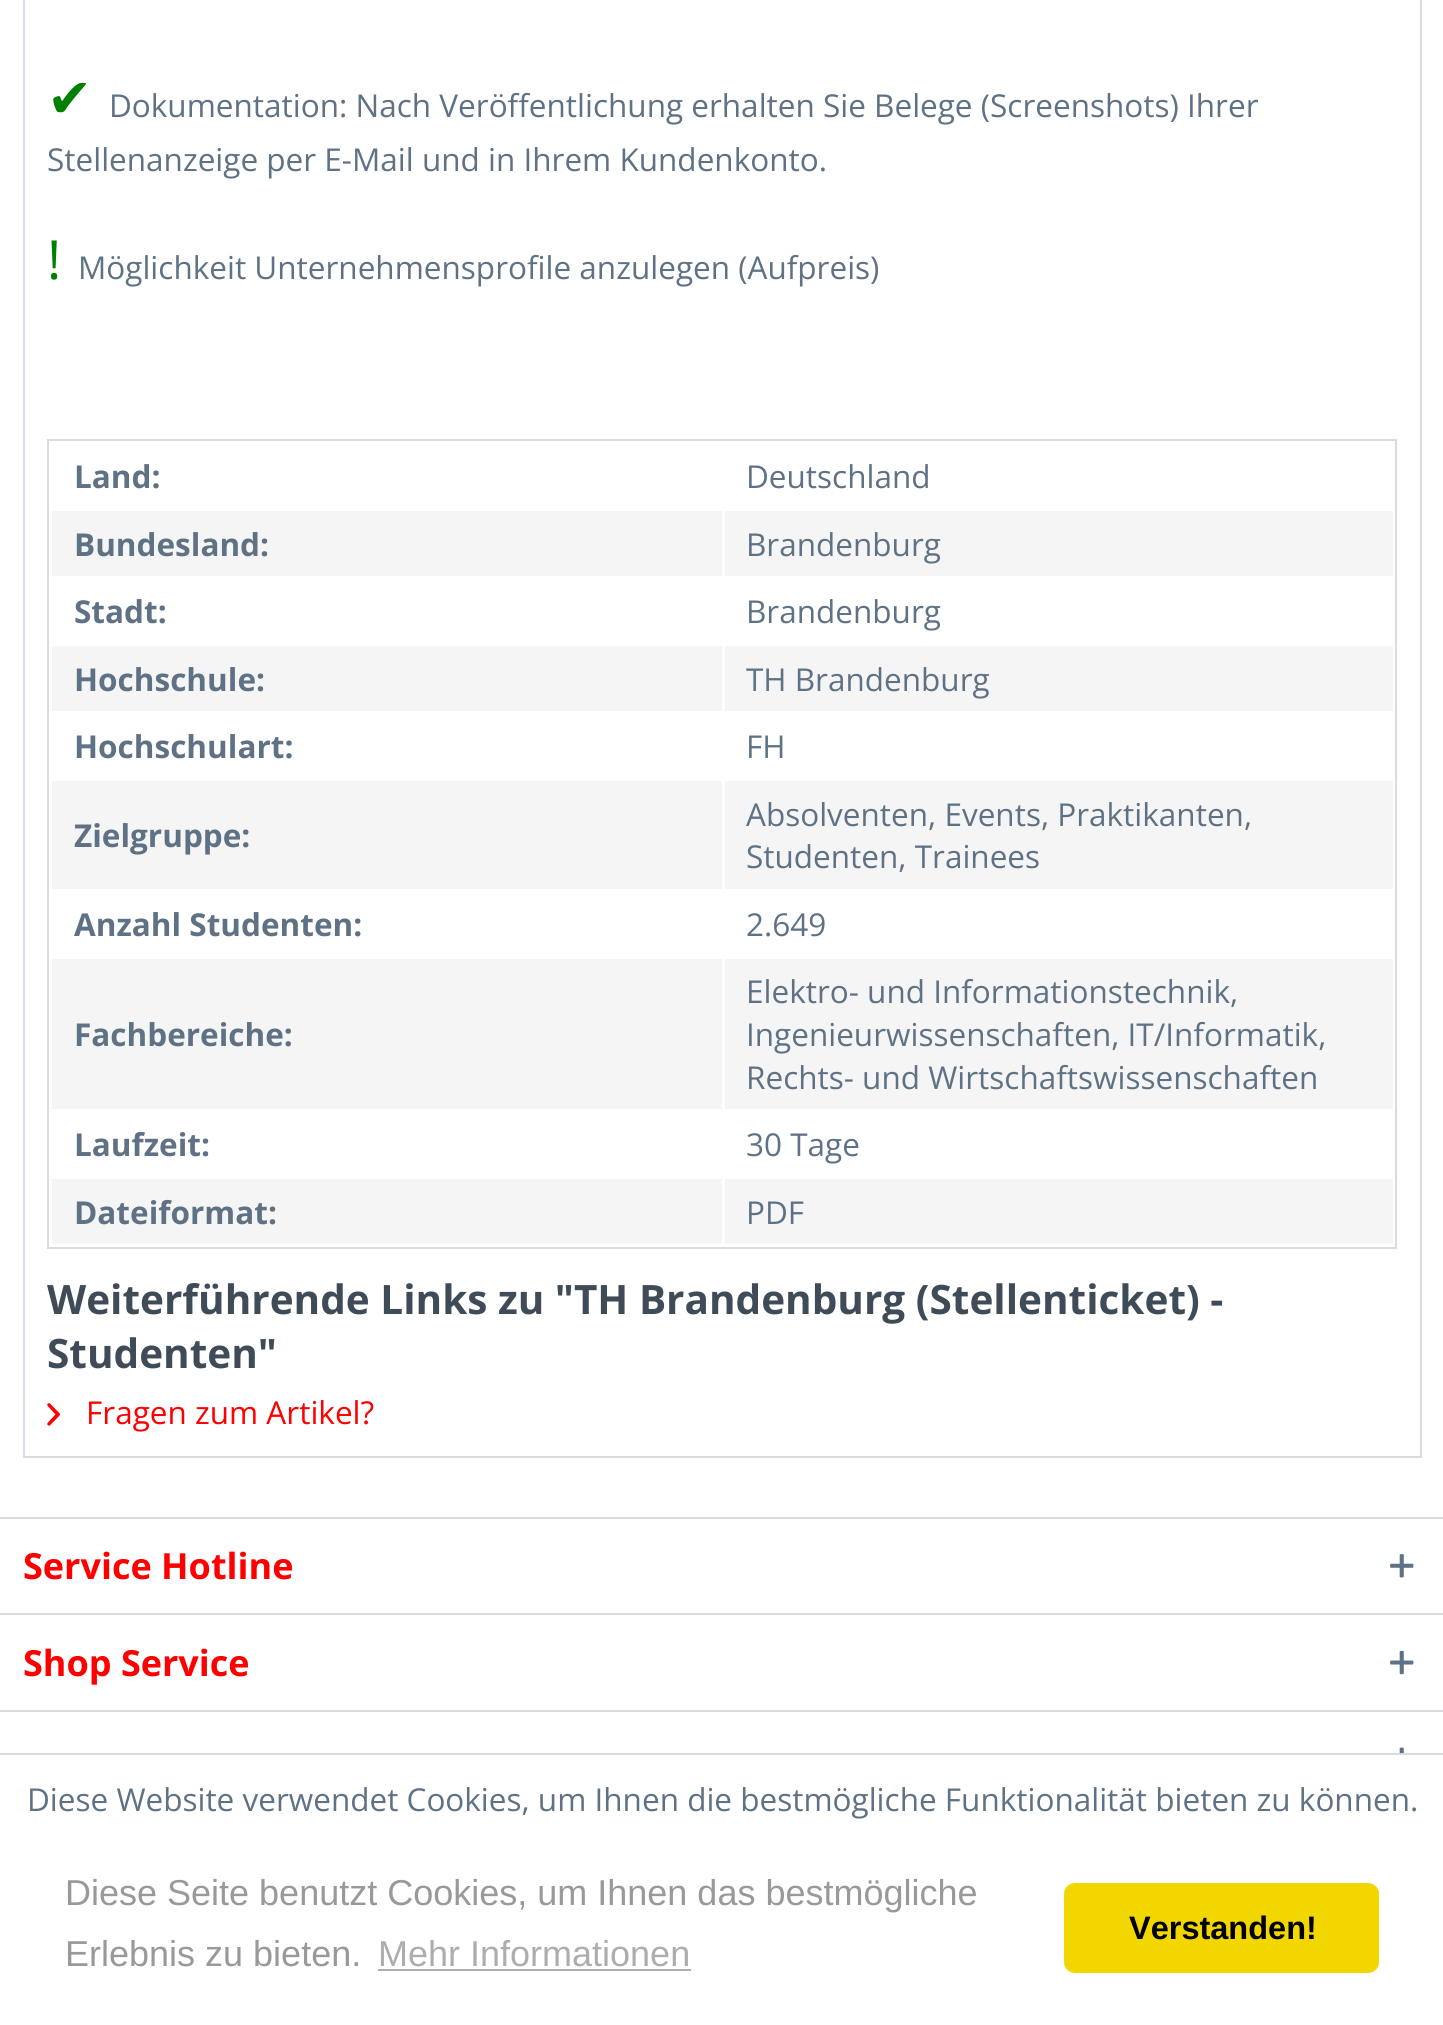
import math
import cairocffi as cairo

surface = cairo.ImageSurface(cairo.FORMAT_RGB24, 1443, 2025)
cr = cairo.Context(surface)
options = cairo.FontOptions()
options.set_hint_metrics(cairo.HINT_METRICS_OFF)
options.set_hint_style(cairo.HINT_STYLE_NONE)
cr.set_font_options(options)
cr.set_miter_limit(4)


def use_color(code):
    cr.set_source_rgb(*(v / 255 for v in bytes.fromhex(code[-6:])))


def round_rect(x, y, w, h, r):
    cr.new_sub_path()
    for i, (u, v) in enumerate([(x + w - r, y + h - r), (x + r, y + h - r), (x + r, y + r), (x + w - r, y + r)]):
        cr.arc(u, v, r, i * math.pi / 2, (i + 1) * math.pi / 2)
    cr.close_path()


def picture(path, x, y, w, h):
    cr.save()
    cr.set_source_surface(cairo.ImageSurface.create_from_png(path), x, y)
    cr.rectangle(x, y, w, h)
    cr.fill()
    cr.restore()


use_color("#ffffff")
cr.paint()
cr.rectangle(24, -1, 1397, 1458)
use_color("#dadae5")
cr.stroke()
cr.select_font_face("DejaVu Sans")
cr.set_font_size(54)
use_color("#008000")
cr.move_to(47, 117)
cr.show_text("✔")
cr.select_font_face("Open Sans")
cr.set_font_size(31.5)
use_color("#5f7285")
cr.move_to(109, 117)
cr.show_text("Dokumentation: Nach Veröffentlichung erhalten Sie Belege (Screenshots) Ihrer")
cr.move_to(47, 171)
cr.show_text("Stellenanzeige per E-Mail und in Ihrem Kundenkonto.")
cr.set_font_size(54)
use_color("#008000")
cr.move_to(47, 279)
cr.show_text("!")
cr.set_font_size(31.5)
use_color("#5f7285")
cr.move_to(78, 279)
cr.show_text("Möglichkeit Unternehmensprofile anzulegen (Aufpreis)")
cr.rectangle(48, 440, 1348, 808)
use_color("#dadae5")
cr.stroke()
cr.select_font_face("Open Sans", cairo.FONT_SLANT_NORMAL, cairo.FONT_WEIGHT_BOLD)
use_color("#5f7285")
cr.move_to(74, 488)
cr.show_text("Land:")
cr.select_font_face("Open Sans")
cr.move_to(746, 488)
cr.show_text("Deutschland")
use_color("#f5f5f5")
cr.rectangle(52, 511, 670, 65)
cr.fill()
cr.select_font_face("Open Sans", cairo.FONT_SLANT_NORMAL, cairo.FONT_WEIGHT_BOLD)
use_color("#5f7285")
cr.move_to(74, 556)
cr.show_text("Bundesland:")
use_color("#f5f5f5")
cr.rectangle(725, 511, 668, 65)
cr.fill()
cr.select_font_face("Open Sans")
use_color("#5f7285")
cr.move_to(746, 556)
cr.show_text("Brandenburg")
cr.select_font_face("Open Sans", cairo.FONT_SLANT_NORMAL, cairo.FONT_WEIGHT_BOLD)
cr.move_to(74, 623)
cr.show_text("Stadt:")
cr.select_font_face("Open Sans")
cr.move_to(746, 623)
cr.show_text("Brandenburg")
use_color("#f5f5f5")
cr.rectangle(52, 646, 670, 65)
cr.fill()
cr.select_font_face("Open Sans", cairo.FONT_SLANT_NORMAL, cairo.FONT_WEIGHT_BOLD)
use_color("#5f7285")
cr.move_to(74, 691)
cr.show_text("Hochschule:")
use_color("#f5f5f5")
cr.rectangle(725, 646, 668, 65)
cr.fill()
cr.select_font_face("Open Sans")
use_color("#5f7285")
cr.move_to(746, 691)
cr.show_text("TH Brandenburg")
cr.select_font_face("Open Sans", cairo.FONT_SLANT_NORMAL, cairo.FONT_WEIGHT_BOLD)
cr.move_to(74, 758)
cr.show_text("Hochschulart:")
cr.select_font_face("Open Sans")
cr.move_to(746, 758)
cr.show_text("FH")
use_color("#f5f5f5")
cr.rectangle(52, 781, 670, 108)
cr.fill()
cr.select_font_face("Open Sans", cairo.FONT_SLANT_NORMAL, cairo.FONT_WEIGHT_BOLD)
use_color("#5f7285")
cr.move_to(74, 847)
cr.show_text("Zielgruppe:")
use_color("#f5f5f5")
cr.rectangle(725, 781, 668, 108)
cr.fill()
cr.select_font_face("Open Sans")
use_color("#5f7285")
cr.move_to(746, 826)
cr.show_text("Absolventen, Events, Praktikanten,")
cr.move_to(746, 868)
cr.show_text("Studenten, Trainees")
cr.select_font_face("Open Sans", cairo.FONT_SLANT_NORMAL, cairo.FONT_WEIGHT_BOLD)
cr.move_to(74, 936)
cr.show_text("Anzahl Studenten:")
cr.select_font_face("Open Sans")
cr.move_to(746, 936)
cr.show_text("2.649")
use_color("#f5f5f5")
cr.rectangle(52, 959, 670, 150)
cr.fill()
cr.select_font_face("Open Sans", cairo.FONT_SLANT_NORMAL, cairo.FONT_WEIGHT_BOLD)
use_color("#5f7285")
cr.move_to(74, 1046)
cr.show_text("Fachbereiche:")
use_color("#f5f5f5")
cr.rectangle(725, 959, 668, 150)
cr.fill()
cr.select_font_face("Open Sans")
use_color("#5f7285")
cr.move_to(746, 1003)
cr.show_text("Elektro- und Informationstechnik,")
cr.move_to(746, 1046)
cr.show_text("Ingenieurwissenschaften, IT/Informatik,")
cr.move_to(746, 1089)
cr.show_text("Rechts- und Wirtschaftswissenschaften")
cr.select_font_face("Open Sans", cairo.FONT_SLANT_NORMAL, cairo.FONT_WEIGHT_BOLD)
cr.move_to(74, 1156)
cr.show_text("Laufzeit:")
cr.select_font_face("Open Sans")
cr.move_to(746, 1156)
cr.show_text("30 Tage")
use_color("#f5f5f5")
cr.rectangle(52, 1179, 670, 65)
cr.fill()
cr.select_font_face("Open Sans", cairo.FONT_SLANT_NORMAL, cairo.FONT_WEIGHT_BOLD)
use_color("#5f7285")
cr.move_to(74, 1224)
cr.show_text("Dateiformat:")
use_color("#f5f5f5")
cr.rectangle(725, 1179, 668, 65)
cr.fill()
cr.select_font_face("Open Sans")
use_color("#5f7285")
cr.move_to(746, 1224)
cr.show_text("PDF")
cr.select_font_face("Open Sans", cairo.FONT_SLANT_NORMAL, cairo.FONT_WEIGHT_BOLD)
cr.set_font_size(40.5)
use_color("#3f4c58")
cr.move_to(47, 1314)
cr.show_text("Weiterführende Links zu \"TH Brandenburg (Stellenticket) -")
cr.move_to(47, 1368)
cr.show_text("Studenten\"")
picture("img1.png", 47, 1403, 13, 23)
cr.select_font_face("Open Sans")
cr.set_font_size(31.5)
use_color("#ff0000")
cr.move_to(86, 1424)
cr.show_text("Fragen zum Artikel?")
use_color("#dadae5")
cr.rectangle(0, 1517, 1443, 2)
cr.fill()
cr.select_font_face("Open Sans", cairo.FONT_SLANT_NORMAL, cairo.FONT_WEIGHT_BOLD)
cr.set_font_size(36)
use_color("#ff0000")
cr.move_to(23, 1579)
cr.show_text("Service Hotline")
picture("img2.png", 1390, 1554, 24, 24)
use_color("#dadae5")
cr.rectangle(0, 1613, 1443, 2)
cr.fill()
use_color("#ff0000")
cr.move_to(23, 1676)
cr.show_text("Shop Service")
picture("img3.png", 1390, 1650, 24, 25)
use_color("#dadae5")
cr.rectangle(0, 1710, 1443, 2)
cr.fill()
picture("img4.png", 1399, 1747, 5, 6)
cr.rectangle(0, 1753, 1443, 2)
cr.fill()
cr.select_font_face("Open Sans")
cr.set_font_size(31.5)
use_color("#5f7285")
cr.move_to(27, 1811)
cr.show_text("Diese Website verwendet Cookies, um Ihnen die bestmögliche Funktionalität bieten zu können.")
cr.select_font_face("Liberation Sans")
cr.set_font_size(36)
use_color("#999999")
cr.move_to(65, 1905)
cr.show_text("Diese Seite benutzt Cookies, um Ihnen das bestmögliche")
cr.move_to(65, 1966)
cr.show_text("Erlebnis zu bieten.")
use_color("#adadad")
cr.move_to(378, 1966)
cr.show_text("Mehr Informationen")
cr.rectangle(378, 1969, 313, 2)
cr.fill()
use_color("#f1d600")
round_rect(1064, 1883, 315, 90, 11)
cr.fill()
cr.select_font_face("Liberation Sans", cairo.FONT_SLANT_NORMAL, cairo.FONT_WEIGHT_BOLD)
cr.set_font_size(32.5)
use_color("#000000")
cr.move_to(1129, 1939)
cr.show_text("Verstanden!")
surface.write_to_png("result.png")
